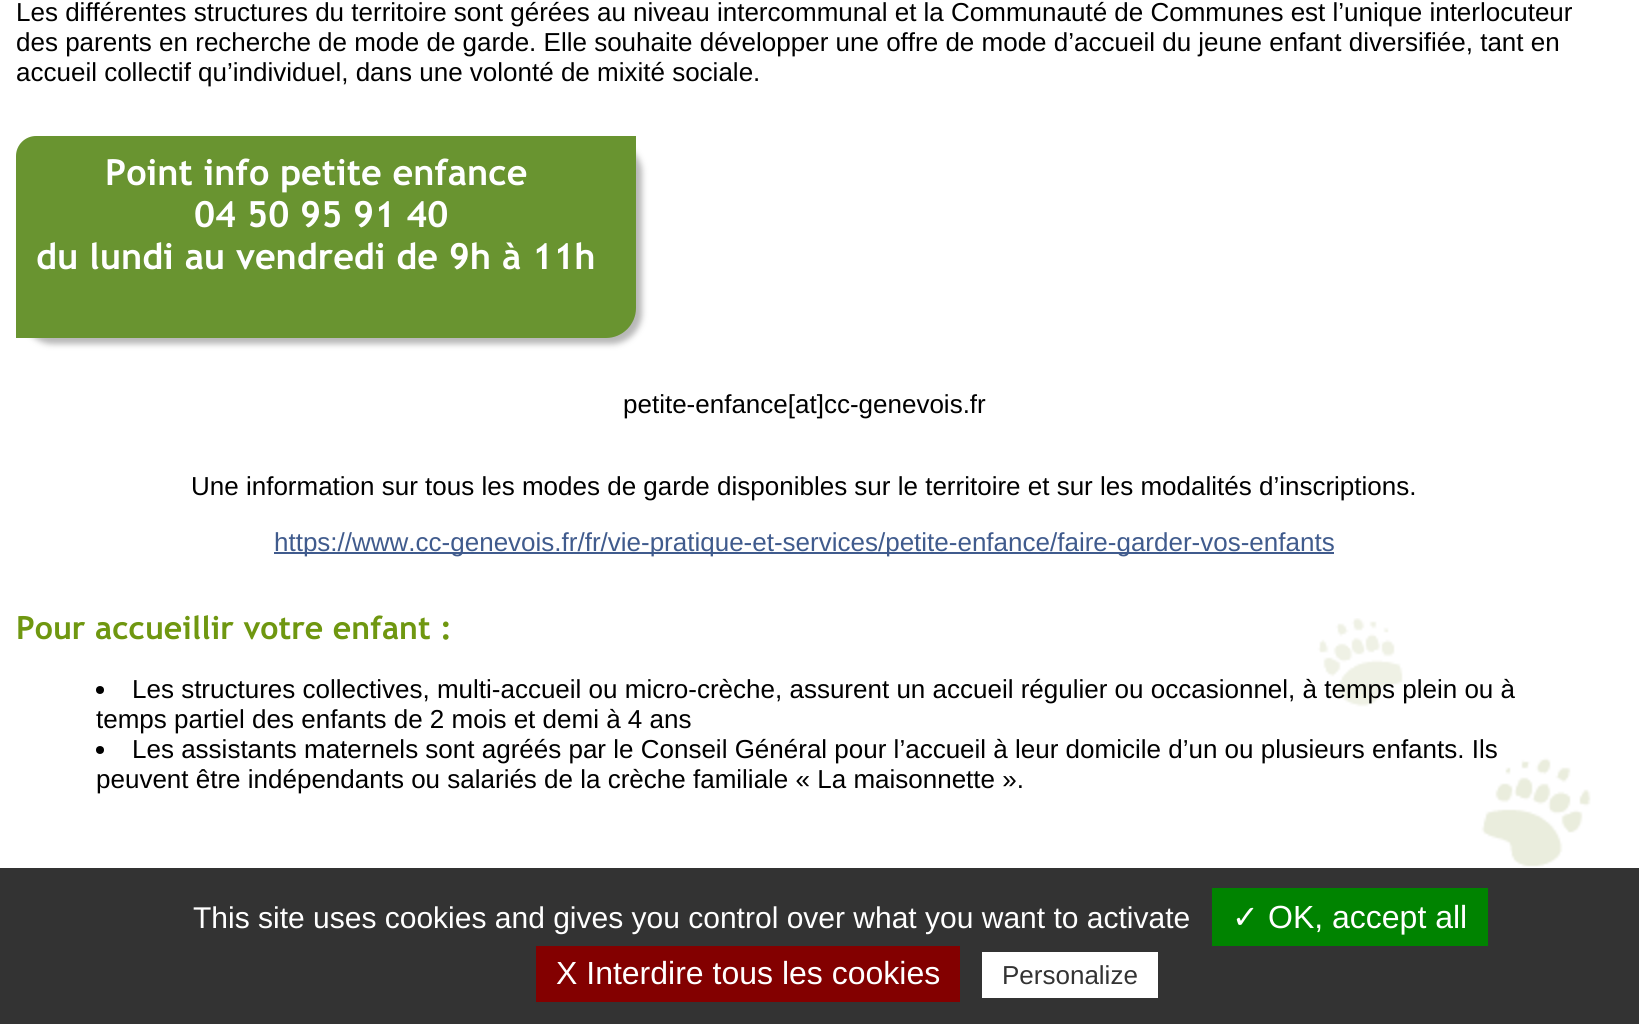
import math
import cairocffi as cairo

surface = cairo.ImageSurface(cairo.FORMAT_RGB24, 1639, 1024)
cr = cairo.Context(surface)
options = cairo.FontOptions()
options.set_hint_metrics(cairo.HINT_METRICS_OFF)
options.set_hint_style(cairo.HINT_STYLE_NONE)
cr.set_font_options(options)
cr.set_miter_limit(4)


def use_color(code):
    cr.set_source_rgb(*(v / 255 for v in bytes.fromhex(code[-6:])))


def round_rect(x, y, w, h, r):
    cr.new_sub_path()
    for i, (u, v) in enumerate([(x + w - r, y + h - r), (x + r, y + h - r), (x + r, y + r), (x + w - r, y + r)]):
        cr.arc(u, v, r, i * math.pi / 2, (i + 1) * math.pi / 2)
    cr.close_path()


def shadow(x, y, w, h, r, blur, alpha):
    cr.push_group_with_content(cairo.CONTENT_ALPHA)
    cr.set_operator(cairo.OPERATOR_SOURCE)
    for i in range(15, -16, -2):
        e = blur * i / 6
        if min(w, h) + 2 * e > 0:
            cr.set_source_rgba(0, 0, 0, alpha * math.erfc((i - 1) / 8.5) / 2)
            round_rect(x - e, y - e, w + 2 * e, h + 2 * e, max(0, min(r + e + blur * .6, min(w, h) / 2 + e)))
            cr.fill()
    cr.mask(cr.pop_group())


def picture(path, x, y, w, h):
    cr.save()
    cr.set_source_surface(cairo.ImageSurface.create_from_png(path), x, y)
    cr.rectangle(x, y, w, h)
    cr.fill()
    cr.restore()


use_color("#ffffff")
cr.paint()
picture("img1.png", 1264, 618, 327, 250)
cr.select_font_face("Liberation Sans")
cr.set_font_size(26)
use_color("#000000")
cr.move_to(16, 21)
cr.show_text("Les différentes structures du territoire sont gérées au niveau intercommunal et la Communauté de Communes est l’unique interlocuteur")
cr.move_to(16, 51)
cr.show_text("des parents en recherche de mode de garde. Elle souhaite développer une offre de mode d’accueil du jeune enfant diversifiée, tant en")
cr.move_to(16, 81)
cr.show_text("accueil collectif qu’individuel, dans une volonté de mixité sociale.")
use_color("#b7b7b7")
shadow(22, 142, 620, 202, 30, 3, 1)
use_color("#699430")
cr.new_path()
cr.move_to(36, 136)
cr.line_to(636, 136)
cr.line_to(636, 308)
cr.curve_to(636, 324.5, 622.5, 338, 606, 338)
cr.line_to(16, 338)
cr.line_to(16, 156)
cr.curve_to(16, 145, 25, 136, 36, 136)
cr.close_path()
cr.fill()
cr.select_font_face("Trebuchet MS", cairo.FONT_SLANT_NORMAL, cairo.FONT_WEIGHT_BOLD)
cr.set_font_size(36)
use_color("#ffffff")
cr.move_to(105, 185)
cr.show_text("Point info petite enfance")
cr.move_to(194, 227)
cr.show_text("04 50 95 91 40")
cr.move_to(36, 269)
cr.show_text("du lundi au vendredi de 9h à 11h")
cr.select_font_face("Liberation Sans")
cr.set_font_size(26)
use_color("#000000")
cr.move_to(623, 413)
cr.show_text("petite-enfance[at]cc-genevois.fr")
cr.move_to(191, 495)
cr.show_text("Une information sur tous les modes de garde disponibles sur le territoire et sur les modalités d’inscriptions.")
use_color("#405b8d")
cr.rectangle(274, 552, 1060, 2)
cr.fill()
cr.move_to(274, 551)
cr.show_text("https://www.cc-genevois.fr/fr/vie-pratique-et-services/petite-enfance/faire-garder-vos-enfants")
cr.select_font_face("Trebuchet MS", cairo.FONT_SLANT_NORMAL, cairo.FONT_WEIGHT_BOLD)
cr.set_font_size(32)
use_color("#6f9710")
cr.move_to(16, 639)
cr.show_text("Pour accueillir votre enfant :")
use_color("#000000")
cr.new_path()
cr.arc(100, 690, 4, 0, 2 * math.pi)
cr.fill()
cr.select_font_face("Liberation Sans")
cr.set_font_size(26)
cr.move_to(132, 698)
cr.show_text("Les structures collectives, multi-accueil ou micro-crèche, assurent un accueil régulier ou occasionnel, à temps plein ou à")
cr.move_to(96, 728)
cr.show_text("temps partiel des enfants de 2 mois et demi à 4 ans")
cr.new_path()
cr.arc(100, 750, 4, 0, 2 * math.pi)
cr.fill()
cr.move_to(132, 758)
cr.show_text("Les assistants maternels sont agréés par le Conseil Général pour l’accueil à leur domicile d’un ou plusieurs enfants. Ils")
cr.move_to(96, 788)
cr.show_text("peuvent être indépendants ou salariés de la crèche familiale « La maisonnette ».")
use_color("#333333")
cr.rectangle(0, 868, 1639, 156)
cr.fill()
cr.set_font_size(30)
use_color("#ffffff")
cr.move_to(193, 928)
cr.show_text("This site uses cookies and gives you control over what you want to activate")
use_color("#008300")
cr.rectangle(1212, 888, 276, 58)
cr.fill()
cr.select_font_face("DejaVu Sans")
cr.set_font_size(32)
use_color("#ffffff")
cr.move_to(1232, 928)
cr.show_text("✓")
cr.select_font_face("Liberation Sans")
cr.move_to(1268, 928)
cr.show_text("OK, accept all")
use_color("#830000")
cr.rectangle(536, 946, 424, 56)
cr.fill()
use_color("#ffffff")
cr.move_to(556, 984)
cr.show_text("X Interdire tous les cookies")
cr.rectangle(982, 952, 176, 46)
cr.fill()
cr.set_font_size(26)
use_color("#333333")
cr.move_to(1002, 984)
cr.show_text("Personalize")
surface.write_to_png("result.png")
